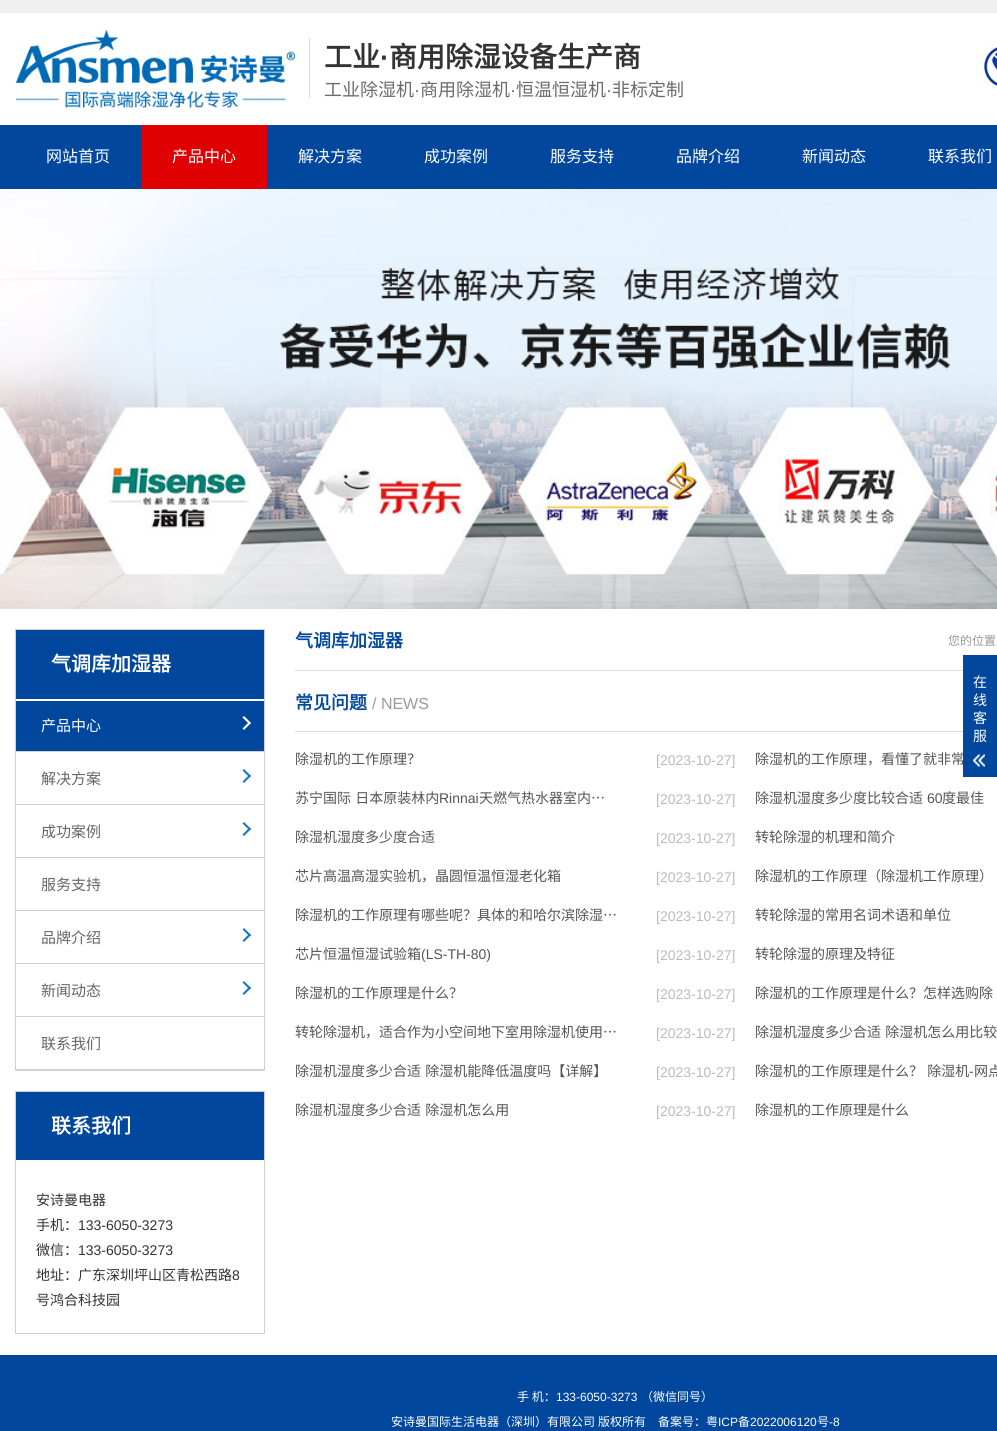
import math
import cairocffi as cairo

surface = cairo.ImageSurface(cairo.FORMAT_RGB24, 997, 1431)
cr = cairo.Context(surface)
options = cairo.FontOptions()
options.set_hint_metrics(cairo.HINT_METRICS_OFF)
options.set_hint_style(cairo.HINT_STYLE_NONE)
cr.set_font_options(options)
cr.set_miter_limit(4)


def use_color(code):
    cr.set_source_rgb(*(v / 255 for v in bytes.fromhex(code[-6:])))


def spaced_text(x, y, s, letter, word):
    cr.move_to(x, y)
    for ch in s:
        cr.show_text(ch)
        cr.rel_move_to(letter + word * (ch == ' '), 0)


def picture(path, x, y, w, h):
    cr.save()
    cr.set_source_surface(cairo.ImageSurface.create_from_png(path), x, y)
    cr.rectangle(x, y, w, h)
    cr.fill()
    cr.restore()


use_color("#ffffff")
cr.paint()
use_color("#f0f0f0")
cr.rectangle(0, 0, 997, 13)
cr.fill()
picture("img1.png", 15, 29, 280, 79)
use_color("#dcdcdc")
cr.rectangle(309, 38, 1, 60)
cr.fill()
cr.select_font_face("Noto Sans CJK SC", cairo.FONT_SLANT_NORMAL, cairo.FONT_WEIGHT_BOLD)
cr.set_font_size(28)
use_color("#333333")
cr.move_to(324, 67)
cr.show_text("工业")
cr.select_font_face("Liberation Sans", cairo.FONT_SLANT_NORMAL, cairo.FONT_WEIGHT_BOLD)
cr.move_to(380, 67)
cr.show_text("·")
cr.select_font_face("Noto Sans CJK SC", cairo.FONT_SLANT_NORMAL, cairo.FONT_WEIGHT_BOLD)
cr.move_to(389, 67)
cr.show_text("商用除湿设备生产商")
cr.select_font_face("Noto Sans CJK SC")
cr.set_font_size(18)
use_color("#6c6c6c")
cr.move_to(324, 96)
cr.show_text("工业除湿机")
cr.select_font_face("Liberation Sans")
cr.move_to(414, 96)
cr.show_text("·")
cr.select_font_face("Noto Sans CJK SC")
cr.move_to(420, 96)
cr.show_text("商用除湿机")
cr.select_font_face("Liberation Sans")
cr.move_to(510, 96)
cr.show_text("·")
cr.select_font_face("Noto Sans CJK SC")
cr.move_to(516, 96)
cr.show_text("恒温恒湿机")
cr.select_font_face("Liberation Sans")
cr.move_to(606, 96)
cr.show_text("·")
cr.select_font_face("Noto Sans CJK SC")
cr.move_to(612, 96)
cr.show_text("非标定制")
picture("img2.png", 984, 45, 13, 43)
use_color("#00479d")
cr.rectangle(0, 125, 997, 64)
cr.fill()
cr.set_font_size(16)
use_color("#ffffff")
cr.move_to(46, 162)
cr.show_text("网站首页")
use_color("#df0001")
cr.rectangle(141, 125, 126, 64)
cr.fill()
use_color("#ffffff")
cr.move_to(172, 162)
cr.show_text("产品中心")
cr.move_to(298, 162)
cr.show_text("解决方案")
cr.move_to(424, 162)
cr.show_text("成功案例")
cr.move_to(550, 162)
cr.show_text("服务支持")
cr.move_to(676, 162)
cr.show_text("品牌介绍")
cr.move_to(802, 162)
cr.show_text("新闻动态")
cr.move_to(928, 162)
cr.show_text("联系我们")
picture("img3.png", 0, 189, 997, 420)
cr.rectangle(15.5, 629.5, 249, 441)
use_color("#d1d1d1")
cr.set_line_width(1)
cr.stroke()
use_color("#00479d")
cr.rectangle(16, 630, 248, 69)
cr.fill()
cr.select_font_face("Noto Sans CJK SC", cairo.FONT_SLANT_NORMAL, cairo.FONT_WEIGHT_BOLD)
cr.set_font_size(20)
use_color("#ffffff")
cr.move_to(51, 671)
cr.show_text("气调库加湿器")
use_color("#d1d1d1")
cr.rectangle(16, 751, 248, 1)
cr.fill()
use_color("#00479d")
cr.rectangle(16, 701, 248, 50)
cr.fill()
cr.select_font_face("Noto Sans CJK SC")
cr.set_font_size(15)
use_color("#ffffff")
cr.move_to(41, 731)
cr.show_text("产品中心")
cr.new_path()
cr.move_to(251, 723)
cr.line_to(244, 730)
cr.line_to(242.5, 728.5)
cr.line_to(249.5, 721.5)
cr.close_path()
cr.fill()
cr.new_path()
cr.move_to(251, 723)
cr.line_to(249.5, 724.5)
cr.line_to(242.5, 717.5)
cr.line_to(244, 716)
cr.close_path()
cr.fill()
use_color("#d1d1d1")
cr.rectangle(16, 804, 248, 1)
cr.fill()
use_color("#666666")
cr.move_to(41, 784)
cr.show_text("解决方案")
use_color("#1977c2")
cr.new_path()
cr.move_to(251, 776)
cr.line_to(244, 783)
cr.line_to(242.5, 781.5)
cr.line_to(249.5, 774.5)
cr.close_path()
cr.fill()
cr.new_path()
cr.move_to(251, 776)
cr.line_to(249.5, 777.5)
cr.line_to(242.5, 770.5)
cr.line_to(244, 769)
cr.close_path()
cr.fill()
use_color("#d1d1d1")
cr.rectangle(16, 857, 248, 1)
cr.fill()
use_color("#666666")
cr.move_to(41, 837)
cr.show_text("成功案例")
use_color("#1977c2")
cr.new_path()
cr.move_to(251, 829)
cr.line_to(244, 836)
cr.line_to(242.5, 834.5)
cr.line_to(249.5, 827.5)
cr.close_path()
cr.fill()
cr.new_path()
cr.move_to(251, 829)
cr.line_to(249.5, 830.5)
cr.line_to(242.5, 823.5)
cr.line_to(244, 822)
cr.close_path()
cr.fill()
use_color("#d1d1d1")
cr.rectangle(16, 910, 248, 1)
cr.fill()
use_color("#666666")
cr.move_to(41, 890)
cr.show_text("服务支持")
use_color("#d1d1d1")
cr.rectangle(16, 963, 248, 1)
cr.fill()
use_color("#666666")
cr.move_to(41, 943)
cr.show_text("品牌介绍")
use_color("#1977c2")
cr.new_path()
cr.move_to(251, 935)
cr.line_to(244, 942)
cr.line_to(242.5, 940.5)
cr.line_to(249.5, 933.5)
cr.close_path()
cr.fill()
cr.new_path()
cr.move_to(251, 935)
cr.line_to(249.5, 936.5)
cr.line_to(242.5, 929.5)
cr.line_to(244, 928)
cr.close_path()
cr.fill()
use_color("#d1d1d1")
cr.rectangle(16, 1016, 248, 1)
cr.fill()
use_color("#666666")
cr.move_to(41, 996)
cr.show_text("新闻动态")
use_color("#1977c2")
cr.new_path()
cr.move_to(251, 988)
cr.line_to(244, 995)
cr.line_to(242.5, 993.5)
cr.line_to(249.5, 986.5)
cr.close_path()
cr.fill()
cr.new_path()
cr.move_to(251, 988)
cr.line_to(249.5, 989.5)
cr.line_to(242.5, 982.5)
cr.line_to(244, 981)
cr.close_path()
cr.fill()
use_color("#d1d1d1")
cr.rectangle(16, 1069, 248, 1)
cr.fill()
use_color("#666666")
cr.move_to(41, 1049)
cr.show_text("联系我们")
cr.rectangle(15.5, 1091.5, 249, 242)
use_color("#d1d1d1")
cr.stroke()
use_color("#00479d")
cr.rectangle(16, 1092, 248, 68)
cr.fill()
cr.select_font_face("Noto Sans CJK SC", cairo.FONT_SLANT_NORMAL, cairo.FONT_WEIGHT_BOLD)
cr.set_font_size(20)
use_color("#ffffff")
cr.move_to(51, 1133)
cr.show_text("联系我们")
cr.select_font_face("Noto Sans CJK SC")
cr.set_font_size(14)
use_color("#333333")
cr.move_to(36, 1205)
cr.show_text("安诗曼电器")
cr.move_to(36, 1230)
cr.show_text("手机：")
cr.select_font_face("Liberation Sans")
cr.move_to(78, 1230)
cr.show_text("133-6050-3273")
cr.select_font_face("Noto Sans CJK SC")
cr.move_to(36, 1255)
cr.show_text("微信：")
cr.select_font_face("Liberation Sans")
cr.move_to(78, 1255)
cr.show_text("133-6050-3273")
cr.select_font_face("Noto Sans CJK SC")
cr.move_to(36, 1280)
cr.show_text("地址：广东深圳坪山区青松西路")
cr.select_font_face("Liberation Sans")
cr.move_to(232, 1280)
cr.show_text("8")
cr.select_font_face("Noto Sans CJK SC")
cr.move_to(36, 1305)
cr.show_text("号鸿合科技园")
use_color("#dddddd")
cr.rectangle(295, 670, 668, 1)
cr.fill()
cr.select_font_face("Noto Sans CJK SC", cairo.FONT_SLANT_NORMAL, cairo.FONT_WEIGHT_BOLD)
cr.set_font_size(18)
use_color("#00479d")
cr.move_to(295, 647)
cr.show_text("气调库加湿器")
cr.select_font_face("Noto Sans CJK SC")
cr.set_font_size(12)
use_color("#999999")
cr.move_to(948, 645)
cr.show_text("您的位置")
use_color("#dddddd")
cr.rectangle(295, 731, 668, 1)
cr.fill()
cr.select_font_face("Noto Sans CJK SC", cairo.FONT_SLANT_NORMAL, cairo.FONT_WEIGHT_BOLD)
cr.set_font_size(18)
use_color("#00479d")
cr.move_to(295, 709)
cr.show_text("常见问题")
cr.select_font_face("Liberation Sans")
cr.set_font_size(16)
use_color("#999999")
cr.move_to(372, 709)
cr.show_text("/ NEWS")
cr.select_font_face("Noto Sans CJK SC")
cr.set_font_size(14)
use_color("#545555")
cr.move_to(295, 764)
cr.show_text("除湿机的工作原理？")
cr.select_font_face("Liberation Sans")
use_color("#bbbbbc")
cr.move_to(656, 765)
cr.show_text("[2023-10-27]")
cr.select_font_face("Noto Sans CJK SC")
use_color("#545555")
cr.move_to(755, 764)
cr.show_text("除湿机的工作原理，看懂了就非常")
spaced_text(295, 803, "苏宁国际 日本原装林内", 0, 1)
cr.select_font_face("Liberation Sans")
cr.move_to(439, 803)
cr.show_text("Rinnai")
cr.select_font_face("Noto Sans CJK SC")
cr.move_to(479, 803)
cr.show_text("天燃气热水器室内…")
cr.select_font_face("Liberation Sans")
use_color("#bbbbbc")
cr.move_to(656, 804)
cr.show_text("[2023-10-27]")
cr.select_font_face("Noto Sans CJK SC")
use_color("#545555")
cr.move_to(755, 803)
cr.show_text("除湿机湿度多少度比较合适")
cr.select_font_face("Liberation Sans")
cr.move_to(927, 803)
cr.show_text("60")
cr.select_font_face("Noto Sans CJK SC")
cr.move_to(942, 803)
cr.show_text("度最佳")
cr.move_to(295, 842)
cr.show_text("除湿机湿度多少度合适")
cr.select_font_face("Liberation Sans")
use_color("#bbbbbc")
cr.move_to(656, 843)
cr.show_text("[2023-10-27]")
cr.select_font_face("Noto Sans CJK SC")
use_color("#545555")
cr.move_to(755, 842)
cr.show_text("转轮除湿的机理和简介")
cr.move_to(295, 881)
cr.show_text("芯片高温高湿实验机，晶圆恒温恒湿老化箱")
cr.select_font_face("Liberation Sans")
use_color("#bbbbbc")
cr.move_to(656, 882)
cr.show_text("[2023-10-27]")
cr.select_font_face("Noto Sans CJK SC")
use_color("#545555")
cr.move_to(755, 881)
cr.show_text("除湿机的工作原理（除湿机工作原理）")
cr.move_to(295, 920)
cr.show_text("除湿机的工作原理有哪些呢？具体的和哈尔滨除湿…")
cr.select_font_face("Liberation Sans")
use_color("#bbbbbc")
cr.move_to(656, 921)
cr.show_text("[2023-10-27]")
cr.select_font_face("Noto Sans CJK SC")
use_color("#545555")
cr.move_to(755, 920)
cr.show_text("转轮除湿的常用名词术语和单位")
cr.move_to(295, 959)
cr.show_text("芯片恒温恒湿试验箱")
cr.select_font_face("Liberation Sans")
cr.move_to(421, 959)
cr.show_text("(LS-TH-80)")
use_color("#bbbbbc")
cr.move_to(656, 960)
cr.show_text("[2023-10-27]")
cr.select_font_face("Noto Sans CJK SC")
use_color("#545555")
cr.move_to(755, 959)
cr.show_text("转轮除湿的原理及特征")
cr.move_to(295, 998)
cr.show_text("除湿机的工作原理是什么？")
cr.select_font_face("Liberation Sans")
use_color("#bbbbbc")
cr.move_to(656, 999)
cr.show_text("[2023-10-27]")
cr.select_font_face("Noto Sans CJK SC")
use_color("#545555")
cr.move_to(755, 998)
cr.show_text("除湿机的工作原理是什么？怎样选购除")
cr.move_to(295, 1037)
cr.show_text("转轮除湿机，适合作为小空间地下室用除湿机使用…")
cr.select_font_face("Liberation Sans")
use_color("#bbbbbc")
cr.move_to(656, 1038)
cr.show_text("[2023-10-27]")
cr.select_font_face("Noto Sans CJK SC")
use_color("#545555")
spaced_text(755, 1037, "除湿机湿度多少合适 除湿机怎么用比较", 0, 1)
spaced_text(295, 1076, "除湿机湿度多少合适 除湿机能降低温度吗【详解】", 0, 1)
cr.select_font_face("Liberation Sans")
use_color("#bbbbbc")
cr.move_to(656, 1077)
cr.show_text("[2023-10-27]")
cr.select_font_face("Noto Sans CJK SC")
use_color("#545555")
spaced_text(755, 1076, "除湿机的工作原理是什么？ 除湿机", 0, 1)
cr.select_font_face("Liberation Sans")
cr.move_to(969, 1076)
cr.show_text("-")
cr.select_font_face("Noto Sans CJK SC")
cr.move_to(974, 1076)
cr.show_text("网点")
spaced_text(295, 1115, "除湿机湿度多少合适 除湿机怎么用", 0, 1)
cr.select_font_face("Liberation Sans")
use_color("#bbbbbc")
cr.move_to(656, 1116)
cr.show_text("[2023-10-27]")
cr.select_font_face("Noto Sans CJK SC")
use_color("#545555")
cr.move_to(755, 1115)
cr.show_text("除湿机的工作原理是什么")
use_color("#00479d")
cr.rectangle(963, 655, 34, 122)
cr.fill()
use_color("#ffffff")
cr.move_to(973, 687)
cr.show_text("在")
cr.move_to(973, 705)
cr.show_text("线")
cr.move_to(973, 723)
cr.show_text("客")
cr.move_to(973, 741)
cr.show_text("服")
picture("img4.png", 973, 754, 12, 13)
use_color("#00479d")
cr.rectangle(0, 1355, 997, 76)
cr.fill()
cr.set_font_size(12)
use_color("#ffffff")
cr.move_to(517, 1401)
cr.show_text("手 机：")
cr.select_font_face("Liberation Sans")
cr.move_to(556, 1401)
cr.show_text("133-6050-3273")
cr.select_font_face("Noto Sans CJK SC")
cr.move_to(641, 1401)
cr.show_text("（微信同号）")
cr.move_to(391, 1426)
cr.show_text("安诗曼国际生活电器（深圳）有限公司")
cr.move_to(598, 1426)
cr.show_text("版权所有　备案号：粤")
cr.select_font_face("Liberation Sans")
cr.move_to(718, 1426)
cr.show_text("ICP")
cr.select_font_face("Noto Sans CJK SC")
cr.move_to(738, 1426)
cr.show_text("备")
cr.select_font_face("Liberation Sans")
cr.move_to(750, 1426)
cr.show_text("2022006120")
cr.select_font_face("Noto Sans CJK SC")
cr.move_to(817, 1426)
cr.show_text("号")
cr.select_font_face("Liberation Sans")
cr.move_to(829, 1426)
cr.show_text("-8")
surface.write_to_png("result.png")
